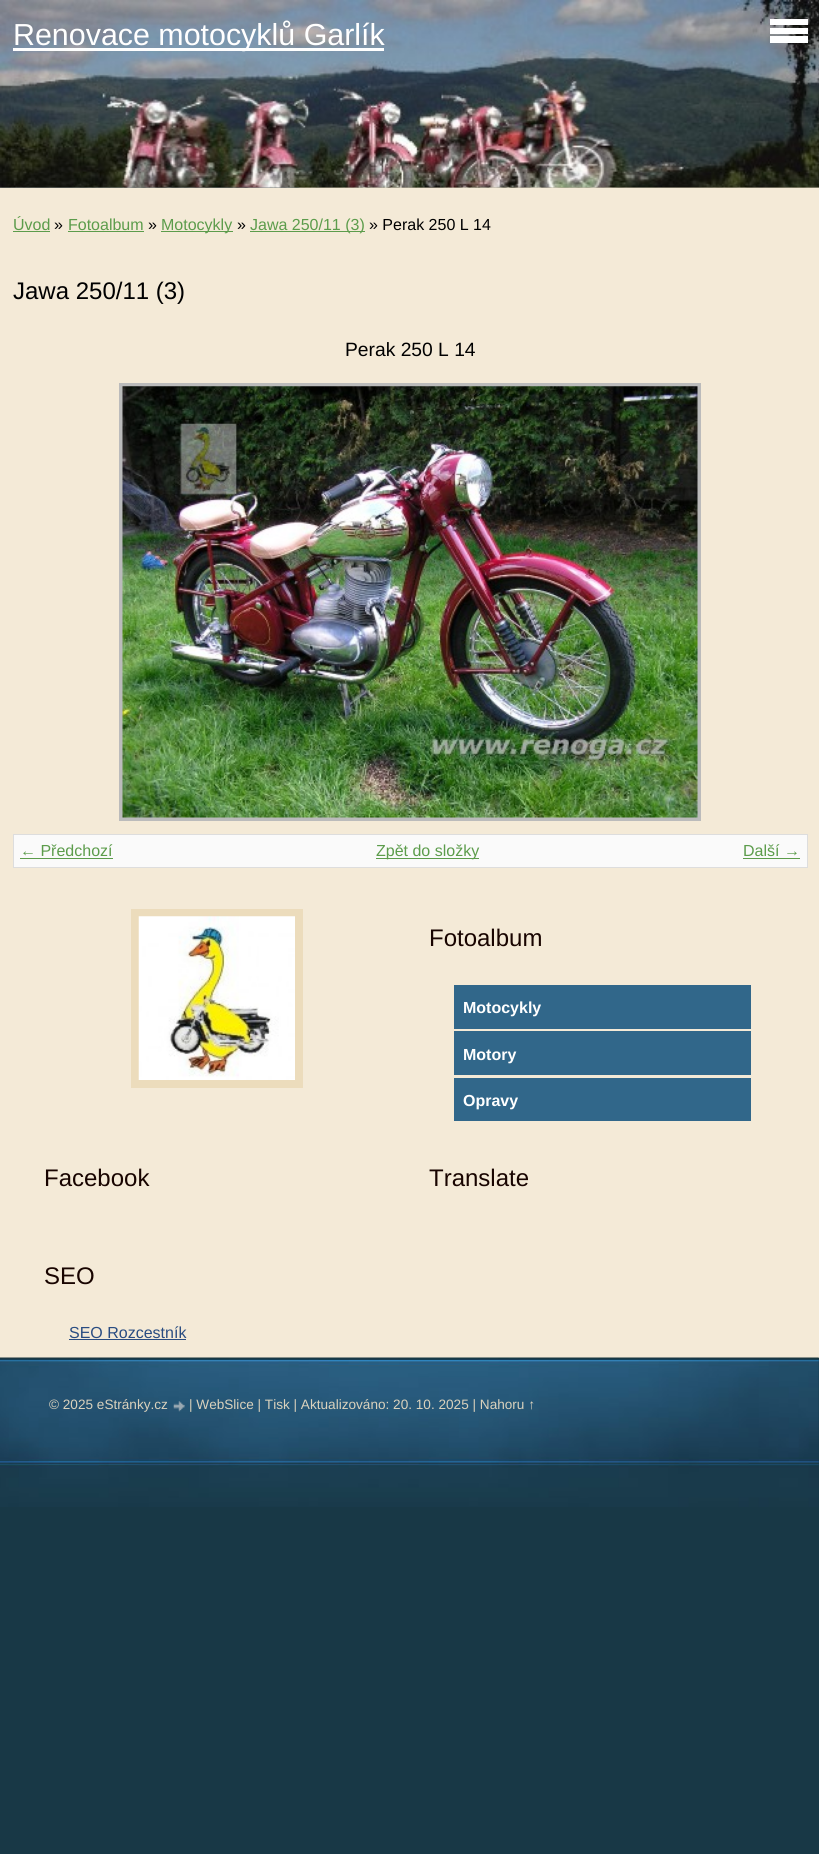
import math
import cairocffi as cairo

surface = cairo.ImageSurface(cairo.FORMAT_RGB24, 819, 1854)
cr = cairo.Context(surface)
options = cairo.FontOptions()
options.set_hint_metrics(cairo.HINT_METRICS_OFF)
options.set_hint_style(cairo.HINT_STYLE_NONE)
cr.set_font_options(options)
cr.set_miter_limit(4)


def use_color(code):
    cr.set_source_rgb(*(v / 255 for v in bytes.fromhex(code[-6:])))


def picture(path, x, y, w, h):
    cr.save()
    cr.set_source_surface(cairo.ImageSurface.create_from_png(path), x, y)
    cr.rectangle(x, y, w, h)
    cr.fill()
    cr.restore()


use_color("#183846")
cr.paint()
use_color("#f4ead7")
cr.rectangle(0, 187, 819, 1171)
cr.fill()
picture("img1.png", 0, 187, 819, 1)
picture("img2.png", 0, 0, 819, 188)
use_color("#ffffff")
cr.rectangle(13, 48, 371, 3)
cr.fill()
cr.select_font_face("Liberation Sans")
cr.set_font_size(30.4)
cr.move_to(13, 45)
cr.show_text("Renovace motocyklů Garlík")
cr.rectangle(770, 19, 38, 6)
cr.fill()
cr.rectangle(770, 28, 38, 6)
cr.fill()
cr.rectangle(770, 36, 38, 7)
cr.fill()
cr.set_font_size(16)
use_color("#5c9c4b")
cr.move_to(13, 230)
cr.show_text("Úvod")
cr.rectangle(13, 231, 37, 1)
cr.fill()
use_color("#000000")
cr.move_to(54, 230)
cr.show_text("»")
use_color("#5c9c4b")
cr.move_to(68, 230)
cr.show_text("Fotoalbum")
cr.rectangle(68, 231, 76, 1)
cr.fill()
use_color("#000000")
cr.move_to(148, 230)
cr.show_text("»")
use_color("#5c9c4b")
cr.rectangle(161, 231, 72, 1)
cr.fill()
cr.move_to(161, 230)
cr.show_text("Motocykly")
use_color("#000000")
cr.move_to(237, 230)
cr.show_text("»")
use_color("#5c9c4b")
cr.rectangle(250, 231, 115, 1)
cr.fill()
cr.move_to(250, 230)
cr.show_text("Jawa 250/11 (3)")
use_color("#000000")
cr.move_to(369, 230)
cr.show_text("» Perak 250 L 14")
cr.set_font_size(24)
cr.move_to(13, 299)
cr.show_text("Jawa 250/11 (3)")
cr.set_font_size(19.25)
cr.move_to(345, 356)
cr.show_text("Perak 250 L 14")
cr.rectangle(121, 385, 578, 434)
use_color("#bbbbbb")
cr.set_line_width(4)
cr.stroke()
picture("img3.png", 122, 386, 576, 432)
use_color("#fafafa")
cr.rectangle(13.5, 834.5, 794, 33)
cr.fill_preserve()
use_color("#dddddd")
cr.set_line_width(1)
cr.stroke()
cr.set_font_size(16)
use_color("#5c9c4b")
cr.move_to(20, 856)
cr.show_text("← Předchozí")
cr.rectangle(20, 858, 93, 1)
cr.fill()
cr.rectangle(376, 858, 103, 1)
cr.fill()
cr.move_to(376, 856)
cr.show_text("Zpět do složky")
cr.move_to(743, 856)
cr.show_text("Další →")
cr.rectangle(743, 858, 57, 1)
cr.fill()
cr.rectangle(135, 913, 164, 171)
use_color("#ecdcbc")
cr.set_line_width(8)
cr.stroke()
picture("img4.png", 138, 916, 157, 164)
cr.set_font_size(24)
use_color("#180400")
cr.move_to(429, 946)
cr.show_text("Fotoalbum")
use_color("#31678a")
cr.rectangle(454, 985, 297, 44)
cr.fill()
cr.select_font_face("Liberation Sans", cairo.FONT_SLANT_NORMAL, cairo.FONT_WEIGHT_BOLD)
cr.set_font_size(16)
use_color("#ffffff")
cr.move_to(463, 1013)
cr.show_text("Motocykly")
use_color("#31678a")
cr.rectangle(454, 1031, 297, 44)
cr.fill()
use_color("#ffffff")
cr.move_to(463, 1060)
cr.show_text("Motory")
use_color("#31678a")
cr.rectangle(454, 1078, 297, 43)
cr.fill()
use_color("#ffffff")
cr.move_to(463, 1106)
cr.show_text("Opravy")
cr.select_font_face("Liberation Sans")
cr.set_font_size(24)
use_color("#180400")
cr.move_to(44, 1186)
cr.show_text("Facebook")
cr.move_to(429, 1186)
cr.show_text("Translate")
cr.move_to(44, 1284)
cr.show_text("SEO")
cr.set_font_size(16)
use_color("#294c81")
cr.move_to(69, 1338)
cr.show_text("SEO Rozcestník")
cr.rectangle(69, 1339, 117, 1)
cr.fill()
picture("img5.png", 0, 1357, 819, 150)
cr.set_font_size(13.6)
use_color("#dad2bd")
cr.move_to(49, 1409)
cr.show_text("© 2025 eStránky.cz")
picture("img6.png", 173, 1401, 12, 11)
cr.move_to(189, 1409)
cr.show_text("| WebSlice | Tisk | Aktualizováno: 20. 10. 2025 | Nahoru ↑")
surface.write_to_png("result.png")
